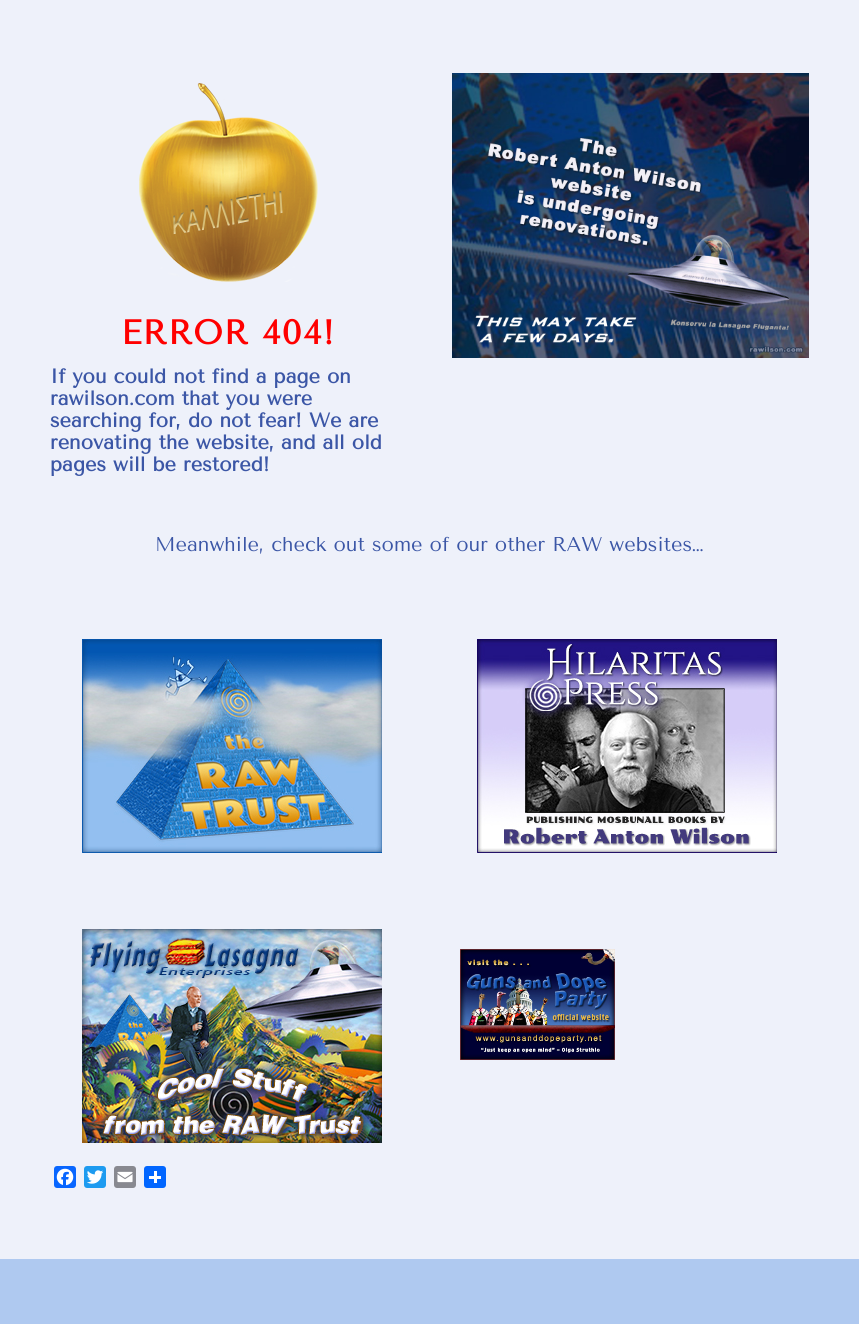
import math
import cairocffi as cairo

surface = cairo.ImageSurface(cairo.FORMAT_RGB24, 859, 1324)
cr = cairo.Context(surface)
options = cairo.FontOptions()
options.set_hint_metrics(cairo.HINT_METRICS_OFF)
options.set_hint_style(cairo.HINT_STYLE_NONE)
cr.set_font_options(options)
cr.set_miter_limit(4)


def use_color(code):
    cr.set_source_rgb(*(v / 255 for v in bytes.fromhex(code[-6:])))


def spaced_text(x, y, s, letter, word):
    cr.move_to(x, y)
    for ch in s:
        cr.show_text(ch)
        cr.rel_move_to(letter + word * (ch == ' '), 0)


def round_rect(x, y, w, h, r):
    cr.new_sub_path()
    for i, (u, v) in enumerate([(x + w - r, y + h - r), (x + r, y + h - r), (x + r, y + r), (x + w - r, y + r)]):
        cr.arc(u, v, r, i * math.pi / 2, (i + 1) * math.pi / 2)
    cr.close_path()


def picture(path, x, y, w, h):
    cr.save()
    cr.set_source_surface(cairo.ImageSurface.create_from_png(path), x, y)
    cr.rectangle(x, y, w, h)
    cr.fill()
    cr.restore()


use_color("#afc9f0")
cr.paint()
use_color("#eef1fa")
cr.rectangle(0, 0, 859, 1259)
cr.fill()
picture("img1.png", 452, 73, 357, 285)
picture("img2.png", 139, 83, 179, 199)
cr.select_font_face("Tenor Sans", cairo.FONT_SLANT_NORMAL, cairo.FONT_WEIGHT_BOLD)
cr.set_font_size(34)
use_color("#ff0000")
spaced_text(121, 344, "ERROR 404!", 1, 0)
cr.set_font_size(20)
use_color("#3b56a6")
cr.move_to(50, 383)
cr.show_text("If you could not find a page on")
cr.move_to(50, 405)
cr.show_text("rawilson.com that you were")
cr.move_to(50, 427)
cr.show_text("searching for, do not fear! We are")
cr.move_to(50, 449)
cr.show_text("renovating the website, and all old")
cr.move_to(50, 471)
cr.show_text("pages will be restored!")
cr.select_font_face("Tenor Sans")
cr.move_to(155, 551)
cr.show_text("Meanwhile, check out some of our other RAW websites…")
picture("img3.png", 82, 639, 300, 214)
picture("img4.png", 477, 639, 300, 214)
picture("img5.png", 82, 929, 300, 214)
picture("img6.png", 460, 949, 155, 111)
use_color("#0866ff")
round_rect(54, 1166, 22, 22, 3)
cr.fill()
picture("img7.png", 56, 1168, 18, 18)
use_color("#1d9bf0")
round_rect(84, 1166, 22, 22, 3)
cr.fill()
picture("img8.png", 87, 1170, 16, 14)
use_color("#888990")
round_rect(114, 1166, 22, 22, 3)
cr.fill()
picture("img9.png", 117, 1171, 16, 12)
use_color("#0166ff")
round_rect(144, 1166, 22, 22, 3)
cr.fill()
use_color("#ffffff")
cr.rectangle(154, 1171, 3, 12)
cr.fill()
cr.rectangle(149, 1176, 12, 3)
cr.fill()
surface.write_to_png("result.png")
